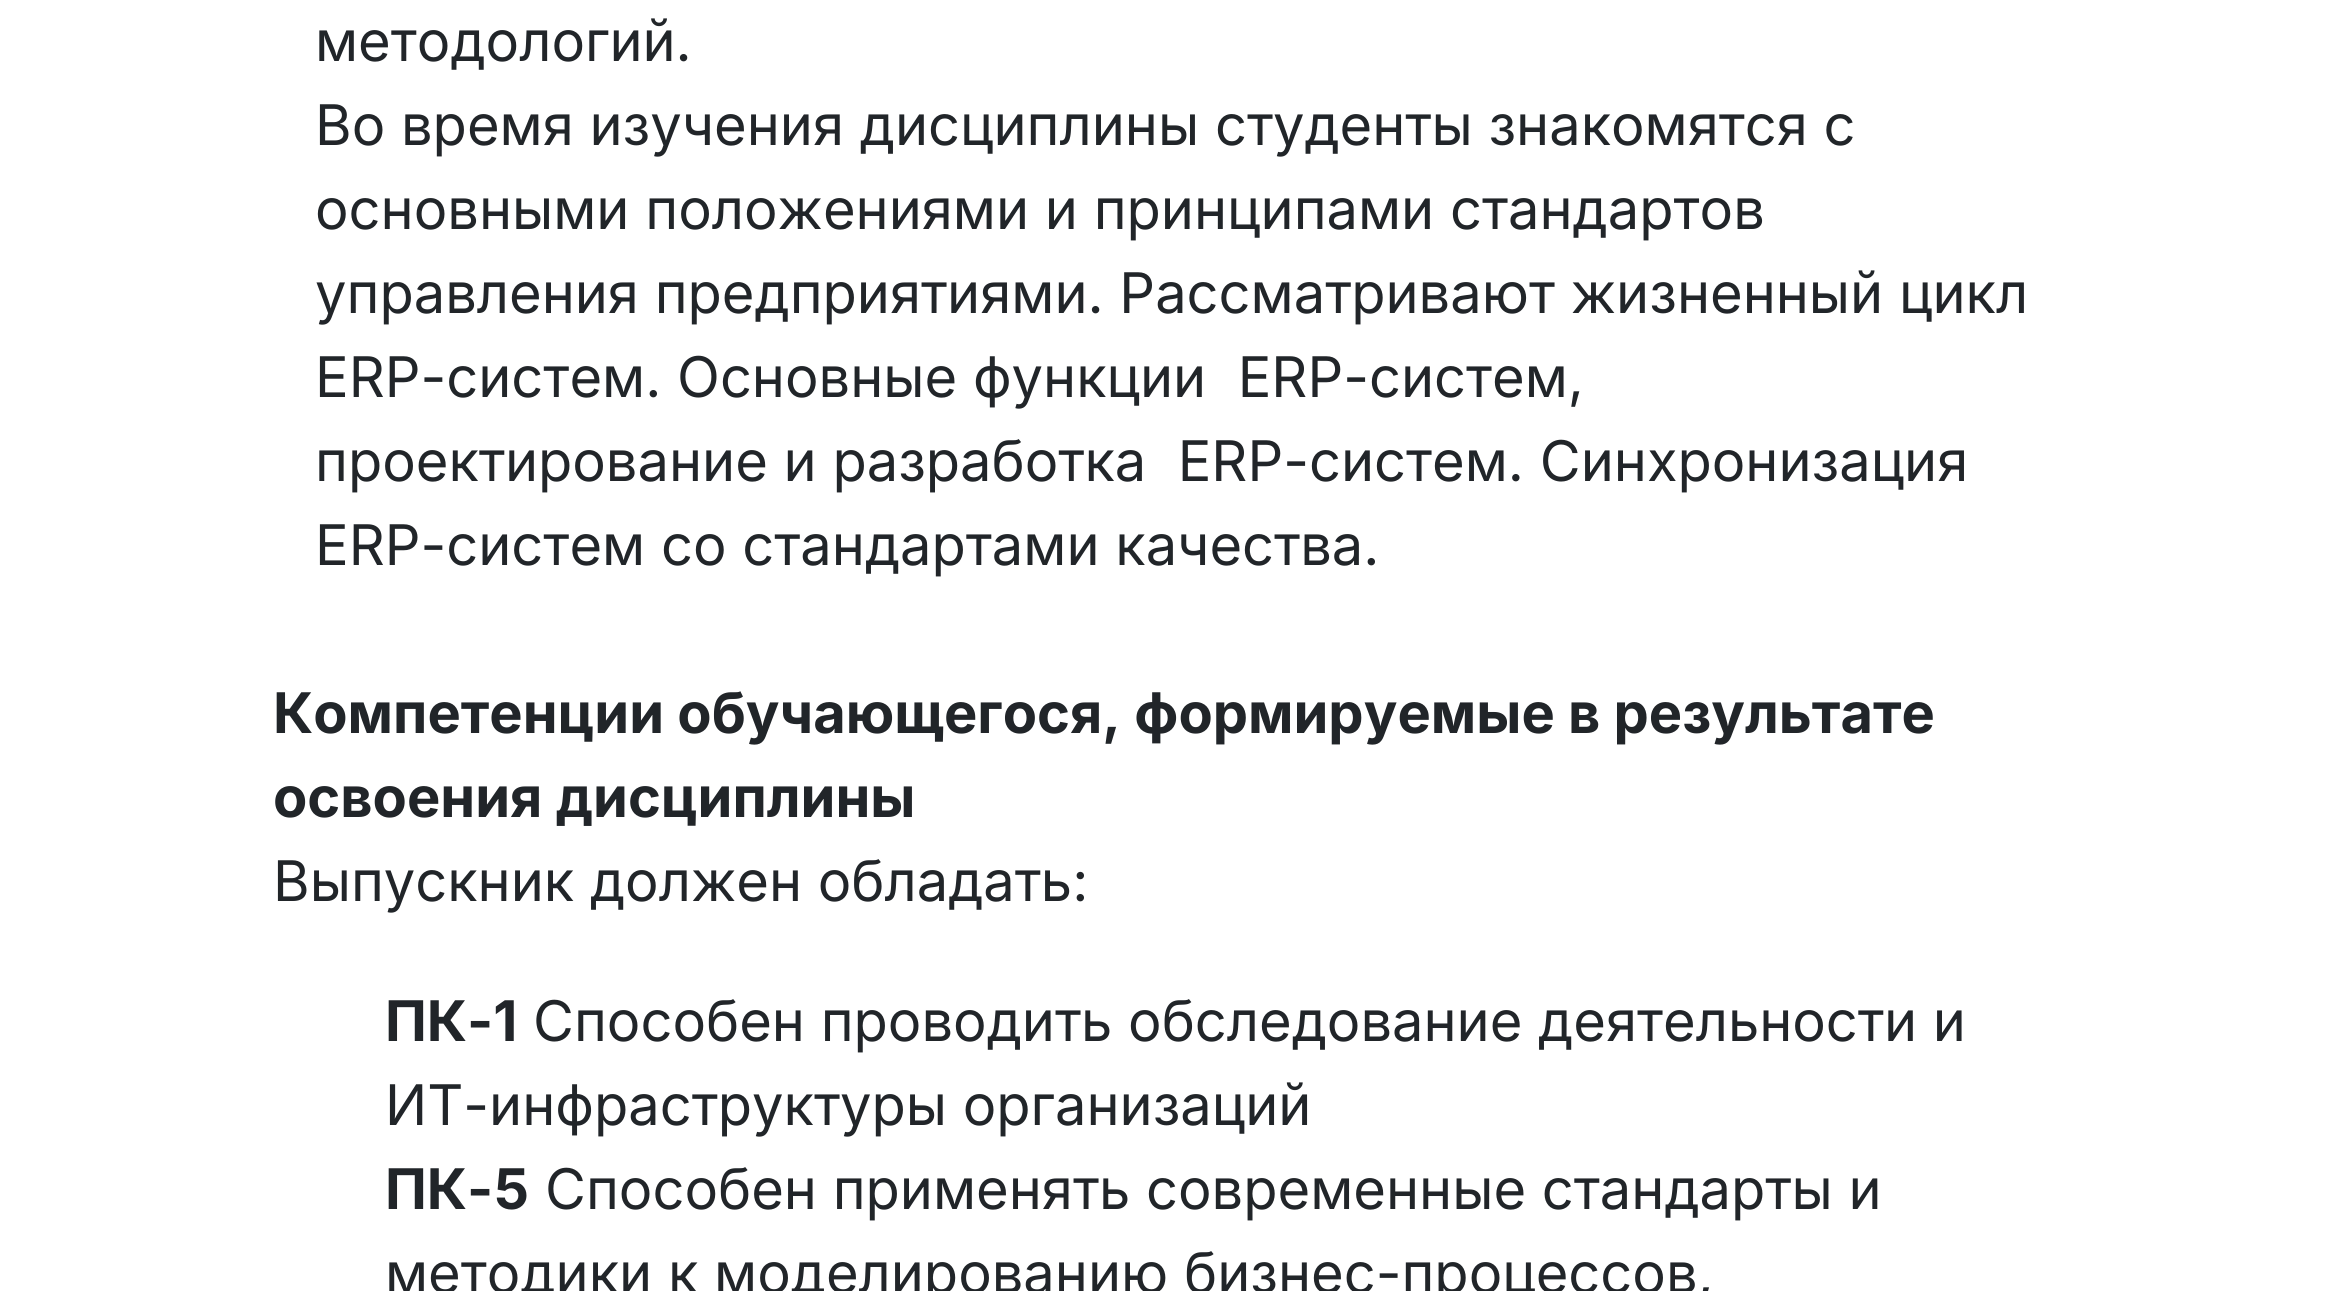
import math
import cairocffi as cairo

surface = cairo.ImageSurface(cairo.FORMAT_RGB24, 2349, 1291)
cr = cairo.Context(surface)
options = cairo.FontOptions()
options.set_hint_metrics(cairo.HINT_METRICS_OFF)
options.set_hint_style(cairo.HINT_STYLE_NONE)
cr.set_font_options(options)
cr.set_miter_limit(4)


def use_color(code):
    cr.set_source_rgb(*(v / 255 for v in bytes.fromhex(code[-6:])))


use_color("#ffffff")
cr.paint()
cr.select_font_face("Inter")
cr.set_font_size(56)
use_color("#212529")
cr.move_to(315, 61)
cr.show_text("методологий.")
cr.move_to(315, 145)
cr.show_text("Во время изучения дисциплины студенты знакомятся с")
cr.move_to(315, 229)
cr.show_text("основными положениями и принципами стандартов")
cr.move_to(315, 313)
cr.show_text("управления предприятиями. Рассматривают жизненный цикл")
cr.move_to(315, 397)
cr.show_text("ERP-систем. Основные функции  ERP-систем,")
cr.move_to(315, 481)
cr.show_text("проектирование и разработка  ERP-систем. Синхронизация")
cr.move_to(315, 565)
cr.show_text("ERP-систем со стандартами качества.")
cr.select_font_face("Inter", cairo.FONT_SLANT_NORMAL, cairo.FONT_WEIGHT_BOLD)
cr.move_to(273, 733)
cr.show_text("Компетенции обучающегося, формируемые в результате")
cr.move_to(273, 817)
cr.show_text("освоения дисциплины")
cr.select_font_face("Inter")
cr.move_to(273, 901)
cr.show_text("Выпускник должен обладать:")
cr.select_font_face("Inter", cairo.FONT_SLANT_NORMAL, cairo.FONT_WEIGHT_BOLD)
cr.move_to(385, 1041)
cr.show_text("ПК-1")
cr.select_font_face("Inter")
cr.move_to(533, 1041)
cr.show_text("Способен проводить обследование деятельности и")
cr.move_to(385, 1125)
cr.show_text("ИТ-инфраструктуры организаций")
cr.select_font_face("Inter", cairo.FONT_SLANT_NORMAL, cairo.FONT_WEIGHT_BOLD)
cr.move_to(385, 1209)
cr.show_text("ПК-5")
cr.select_font_face("Inter")
cr.move_to(545, 1209)
cr.show_text("Способен применять современные стандарты и")
cr.move_to(385, 1293)
cr.show_text("методики к моделированию бизнес-процессов,")
surface.write_to_png("result.png")
